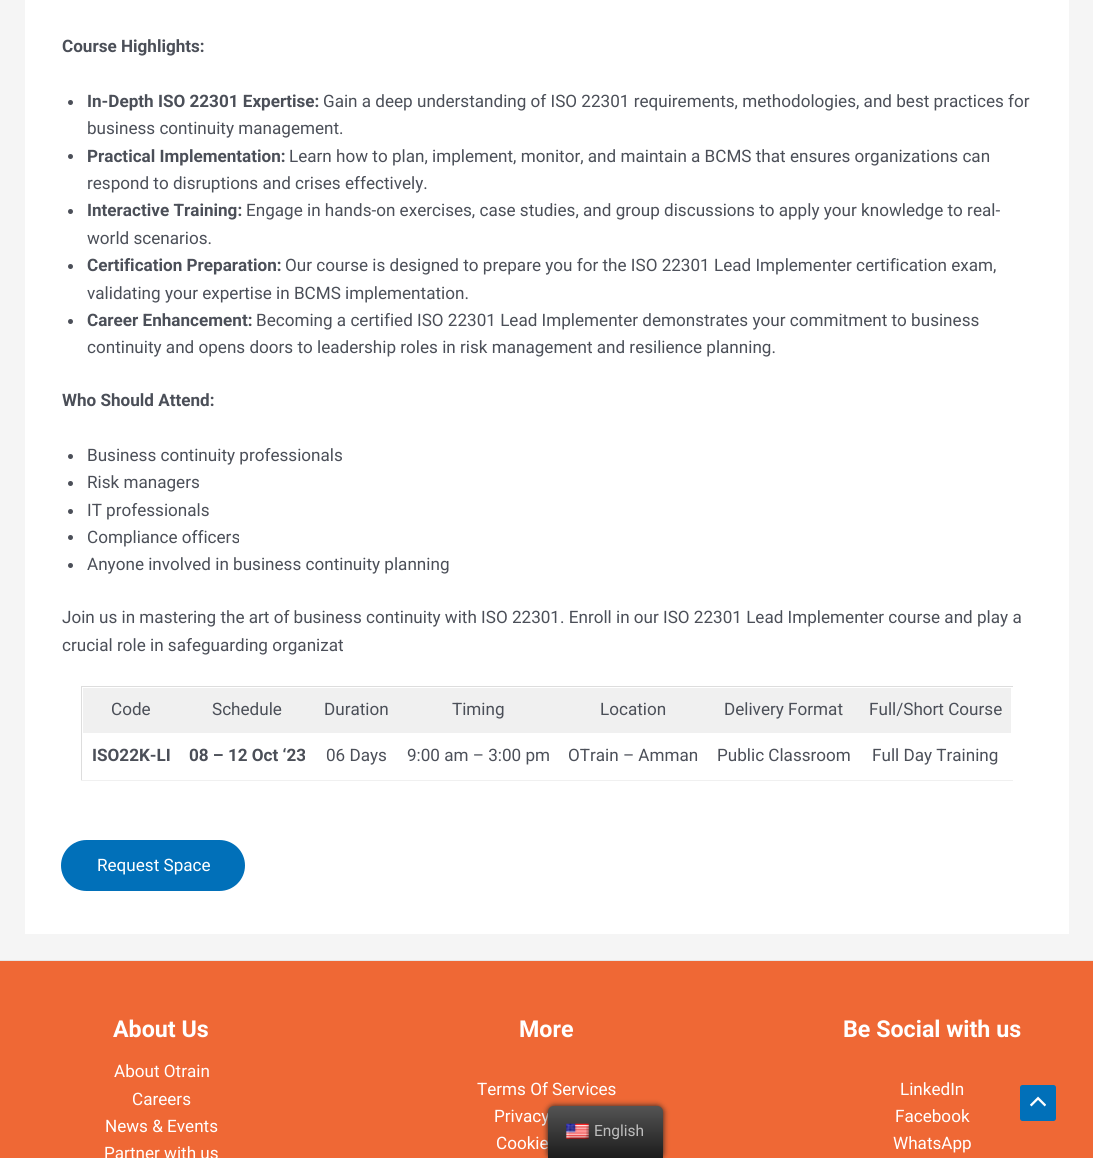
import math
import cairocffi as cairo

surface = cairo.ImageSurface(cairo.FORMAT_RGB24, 1093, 1158)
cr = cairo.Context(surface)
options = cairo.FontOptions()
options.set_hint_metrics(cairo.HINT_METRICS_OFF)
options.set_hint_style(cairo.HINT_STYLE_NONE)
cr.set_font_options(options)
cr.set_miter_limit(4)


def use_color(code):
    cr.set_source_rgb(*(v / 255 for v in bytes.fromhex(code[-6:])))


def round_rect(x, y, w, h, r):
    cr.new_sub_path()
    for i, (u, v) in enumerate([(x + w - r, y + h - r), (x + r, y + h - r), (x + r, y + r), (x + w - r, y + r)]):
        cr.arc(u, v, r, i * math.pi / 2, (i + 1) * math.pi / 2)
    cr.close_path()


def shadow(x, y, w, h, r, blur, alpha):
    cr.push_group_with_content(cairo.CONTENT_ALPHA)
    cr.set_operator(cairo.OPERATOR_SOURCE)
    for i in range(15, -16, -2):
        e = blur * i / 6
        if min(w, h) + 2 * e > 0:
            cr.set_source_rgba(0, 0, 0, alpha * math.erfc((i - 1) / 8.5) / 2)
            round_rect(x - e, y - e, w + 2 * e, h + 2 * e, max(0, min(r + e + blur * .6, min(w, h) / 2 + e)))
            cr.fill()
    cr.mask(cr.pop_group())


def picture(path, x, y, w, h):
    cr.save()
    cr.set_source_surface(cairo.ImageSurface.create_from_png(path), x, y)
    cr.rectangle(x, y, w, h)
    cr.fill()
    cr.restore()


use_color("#f5f5f5")
cr.paint()
use_color("#ffffff")
cr.rectangle(25, 0, 1044, 934)
cr.fill()
cr.select_font_face("Roboto", cairo.FONT_SLANT_NORMAL, cairo.FONT_WEIGHT_BOLD)
cr.set_font_size(17.1)
use_color("#4b4f58")
cr.move_to(62, 52)
cr.show_text("Course Highlights:")
cr.new_path()
cr.arc(70.5, 102.5, 2.5, 0, 2 * math.pi)
cr.fill()
cr.move_to(87, 107)
cr.show_text("In-Depth ISO 22301 Expertise:")
cr.select_font_face("Roboto")
cr.move_to(323, 107)
cr.show_text("Gain a deep understanding of ISO 22301 requirements, methodologies, and best practices for")
cr.move_to(87, 134)
cr.show_text("business continuity management.")
cr.new_path()
cr.arc(70.5, 156.5, 2.5, 0, 2 * math.pi)
cr.fill()
cr.select_font_face("Roboto", cairo.FONT_SLANT_NORMAL, cairo.FONT_WEIGHT_BOLD)
cr.move_to(87, 162)
cr.show_text("Practical Implementation:")
cr.select_font_face("Roboto")
cr.move_to(289, 162)
cr.show_text("Learn how to plan, implement, monitor, and maintain a BCMS that ensures organizations can")
cr.move_to(87, 189)
cr.show_text("respond to disruptions and crises effectively.")
cr.new_path()
cr.arc(70.5, 211.5, 2.5, 0, 2 * math.pi)
cr.fill()
cr.select_font_face("Roboto", cairo.FONT_SLANT_NORMAL, cairo.FONT_WEIGHT_BOLD)
cr.move_to(87, 216)
cr.show_text("Interactive Training:")
cr.select_font_face("Roboto")
cr.move_to(246, 216)
cr.show_text("Engage in hands-on exercises, case studies, and group discussions to apply your knowledge to real-")
cr.move_to(87, 244)
cr.show_text("world scenarios.")
cr.new_path()
cr.arc(70.5, 266.5, 2.5, 0, 2 * math.pi)
cr.fill()
cr.select_font_face("Roboto", cairo.FONT_SLANT_NORMAL, cairo.FONT_WEIGHT_BOLD)
cr.move_to(87, 271)
cr.show_text("Certification Preparation:")
cr.select_font_face("Roboto")
cr.move_to(285, 271)
cr.show_text("Our course is designed to prepare you for the ISO 22301 Lead Implementer certification exam,")
cr.move_to(87, 299)
cr.show_text("validating your expertise in BCMS implementation.")
cr.new_path()
cr.arc(70.5, 321.5, 2.5, 0, 2 * math.pi)
cr.fill()
cr.select_font_face("Roboto", cairo.FONT_SLANT_NORMAL, cairo.FONT_WEIGHT_BOLD)
cr.move_to(87, 326)
cr.show_text("Career Enhancement:")
cr.select_font_face("Roboto")
cr.move_to(256, 326)
cr.show_text("Becoming a certified ISO 22301 Lead Implementer demonstrates your commitment to business")
cr.move_to(87, 353)
cr.show_text("continuity and opens doors to leadership roles in risk management and resilience planning.")
cr.select_font_face("Roboto", cairo.FONT_SLANT_NORMAL, cairo.FONT_WEIGHT_BOLD)
cr.move_to(62, 406)
cr.show_text("Who Should Attend:")
cr.new_path()
cr.arc(70.5, 456.5, 2.5, 0, 2 * math.pi)
cr.fill()
cr.select_font_face("Roboto")
cr.move_to(87, 461)
cr.show_text("Business continuity professionals")
cr.new_path()
cr.arc(70.5, 483.5, 2.5, 0, 2 * math.pi)
cr.fill()
cr.move_to(87, 488)
cr.show_text("Risk managers")
cr.new_path()
cr.arc(70.5, 511.5, 2.5, 0, 2 * math.pi)
cr.fill()
cr.move_to(87, 516)
cr.show_text("IT professionals")
cr.new_path()
cr.arc(70.5, 537.5, 2.5, 0, 2 * math.pi)
cr.fill()
cr.move_to(87, 543)
cr.show_text("Compliance officers")
cr.new_path()
cr.arc(70.5, 565.5, 2.5, 0, 2 * math.pi)
cr.fill()
cr.move_to(87, 570)
cr.show_text("Anyone involved in business continuity planning")
cr.move_to(62, 623)
cr.show_text("Join us in mastering the art of business continuity with ISO 22301. Enroll in our ISO 22301 Lead Implementer course and play a")
cr.move_to(62, 651)
cr.show_text("crucial role in safeguarding organizat")
use_color("#f0f0f0")
cr.rectangle(81, 780, 932, 1)
cr.fill()
use_color("#dddddd")
cr.rectangle(81, 686, 932, 1)
cr.fill()
cr.rectangle(81, 686, 1, 94)
cr.fill()
use_color("#f0f0f0")
cr.rectangle(83, 688, 928, 45)
cr.fill()
use_color("#4b4f58")
cr.move_to(111, 715)
cr.show_text("Code")
cr.move_to(212, 715)
cr.show_text("Schedule")
cr.move_to(324, 715)
cr.show_text("Duration")
cr.move_to(452, 715)
cr.show_text("Timing")
cr.move_to(600, 715)
cr.show_text("Location")
cr.move_to(724, 715)
cr.show_text("Delivery Format")
cr.move_to(869, 715)
cr.show_text("Full/Short Course")
cr.select_font_face("Roboto", cairo.FONT_SLANT_NORMAL, cairo.FONT_WEIGHT_BOLD)
cr.move_to(92, 761)
cr.show_text("ISO22K-LI")
cr.move_to(189, 761)
cr.show_text("08 – 12 Oct ‘23")
cr.select_font_face("Roboto")
cr.move_to(326, 761)
cr.show_text("06 Days")
cr.move_to(407, 761)
cr.show_text("9:00 am – 3:00 pm")
cr.move_to(568, 761)
cr.show_text("OTrain – Amman")
cr.move_to(717, 761)
cr.show_text("Public Classroom")
cr.move_to(872, 761)
cr.show_text("Full Day Training")
use_color("#0170b9")
round_rect(61, 840, 184, 51, 25.5)
cr.fill()
use_color("#ffffff")
cr.move_to(97, 871)
cr.show_text("Request Space")
use_color("#ef6835")
cr.rectangle(0, 961, 1093, 197)
cr.fill()
use_color("#e6e6e6")
cr.rectangle(0, 960, 1093, 1)
cr.fill()
cr.select_font_face("Roboto", cairo.FONT_SLANT_NORMAL, cairo.FONT_WEIGHT_BOLD)
cr.set_font_size(23.25)
use_color("#ffffff")
cr.move_to(113, 1037)
cr.show_text("About Us")
cr.select_font_face("Roboto")
cr.set_font_size(17.1)
cr.move_to(114, 1077)
cr.show_text("About Otrain")
cr.move_to(132, 1105)
cr.show_text("Careers")
cr.move_to(105, 1132)
cr.show_text("News & Events")
cr.move_to(104, 1159)
cr.show_text("Partner with us")
cr.select_font_face("Roboto", cairo.FONT_SLANT_NORMAL, cairo.FONT_WEIGHT_BOLD)
cr.set_font_size(23.25)
cr.move_to(519, 1037)
cr.show_text("More")
cr.select_font_face("Roboto")
cr.set_font_size(17.1)
cr.move_to(477, 1095)
cr.show_text("Terms Of Services")
cr.move_to(494, 1122)
cr.show_text("Privacy")
cr.move_to(496, 1149)
cr.show_text("Cookie")
cr.select_font_face("Roboto", cairo.FONT_SLANT_NORMAL, cairo.FONT_WEIGHT_BOLD)
cr.set_font_size(23.25)
cr.move_to(843, 1037)
cr.show_text("Be Social with us")
cr.select_font_face("Roboto")
cr.set_font_size(17.1)
cr.move_to(900, 1095)
cr.show_text("LinkedIn")
cr.move_to(895, 1122)
cr.show_text("Facebook")
cr.move_to(893, 1149)
cr.show_text("WhatsApp")
use_color("#0170b9")
round_rect(1020, 1085, 36, 36, 2.5)
cr.fill()
picture("img1.png", 1030, 1096, 16, 11)
use_color("#212121")
shadow(548, 1106, 115, 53, 6, 3, 1)
gradient = cairo.LinearGradient(605, 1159, 605, 1106)
gradient.add_color_stop_rgba(0, 0.106, 0.106, 0.106, 1)
gradient.add_color_stop_rgba(1, 0.329, 0.329, 0.329, 1)
cr.set_source(gradient)
cr.new_path()
cr.move_to(554, 1106)
cr.line_to(657, 1106)
cr.curve_to(660.5, 1106, 663, 1108.5, 663, 1112)
cr.line_to(663, 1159)
cr.line_to(548, 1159)
cr.line_to(548, 1112)
cr.curve_to(548, 1108.5, 550.5, 1106, 554, 1106)
cr.close_path()
cr.fill()
picture("img2.png", 566, 1123, 23, 16)
cr.set_font_size(15.5)
use_color("#bdbdbd")
cr.move_to(594, 1136)
cr.show_text("English")
surface.write_to_png("result.png")
